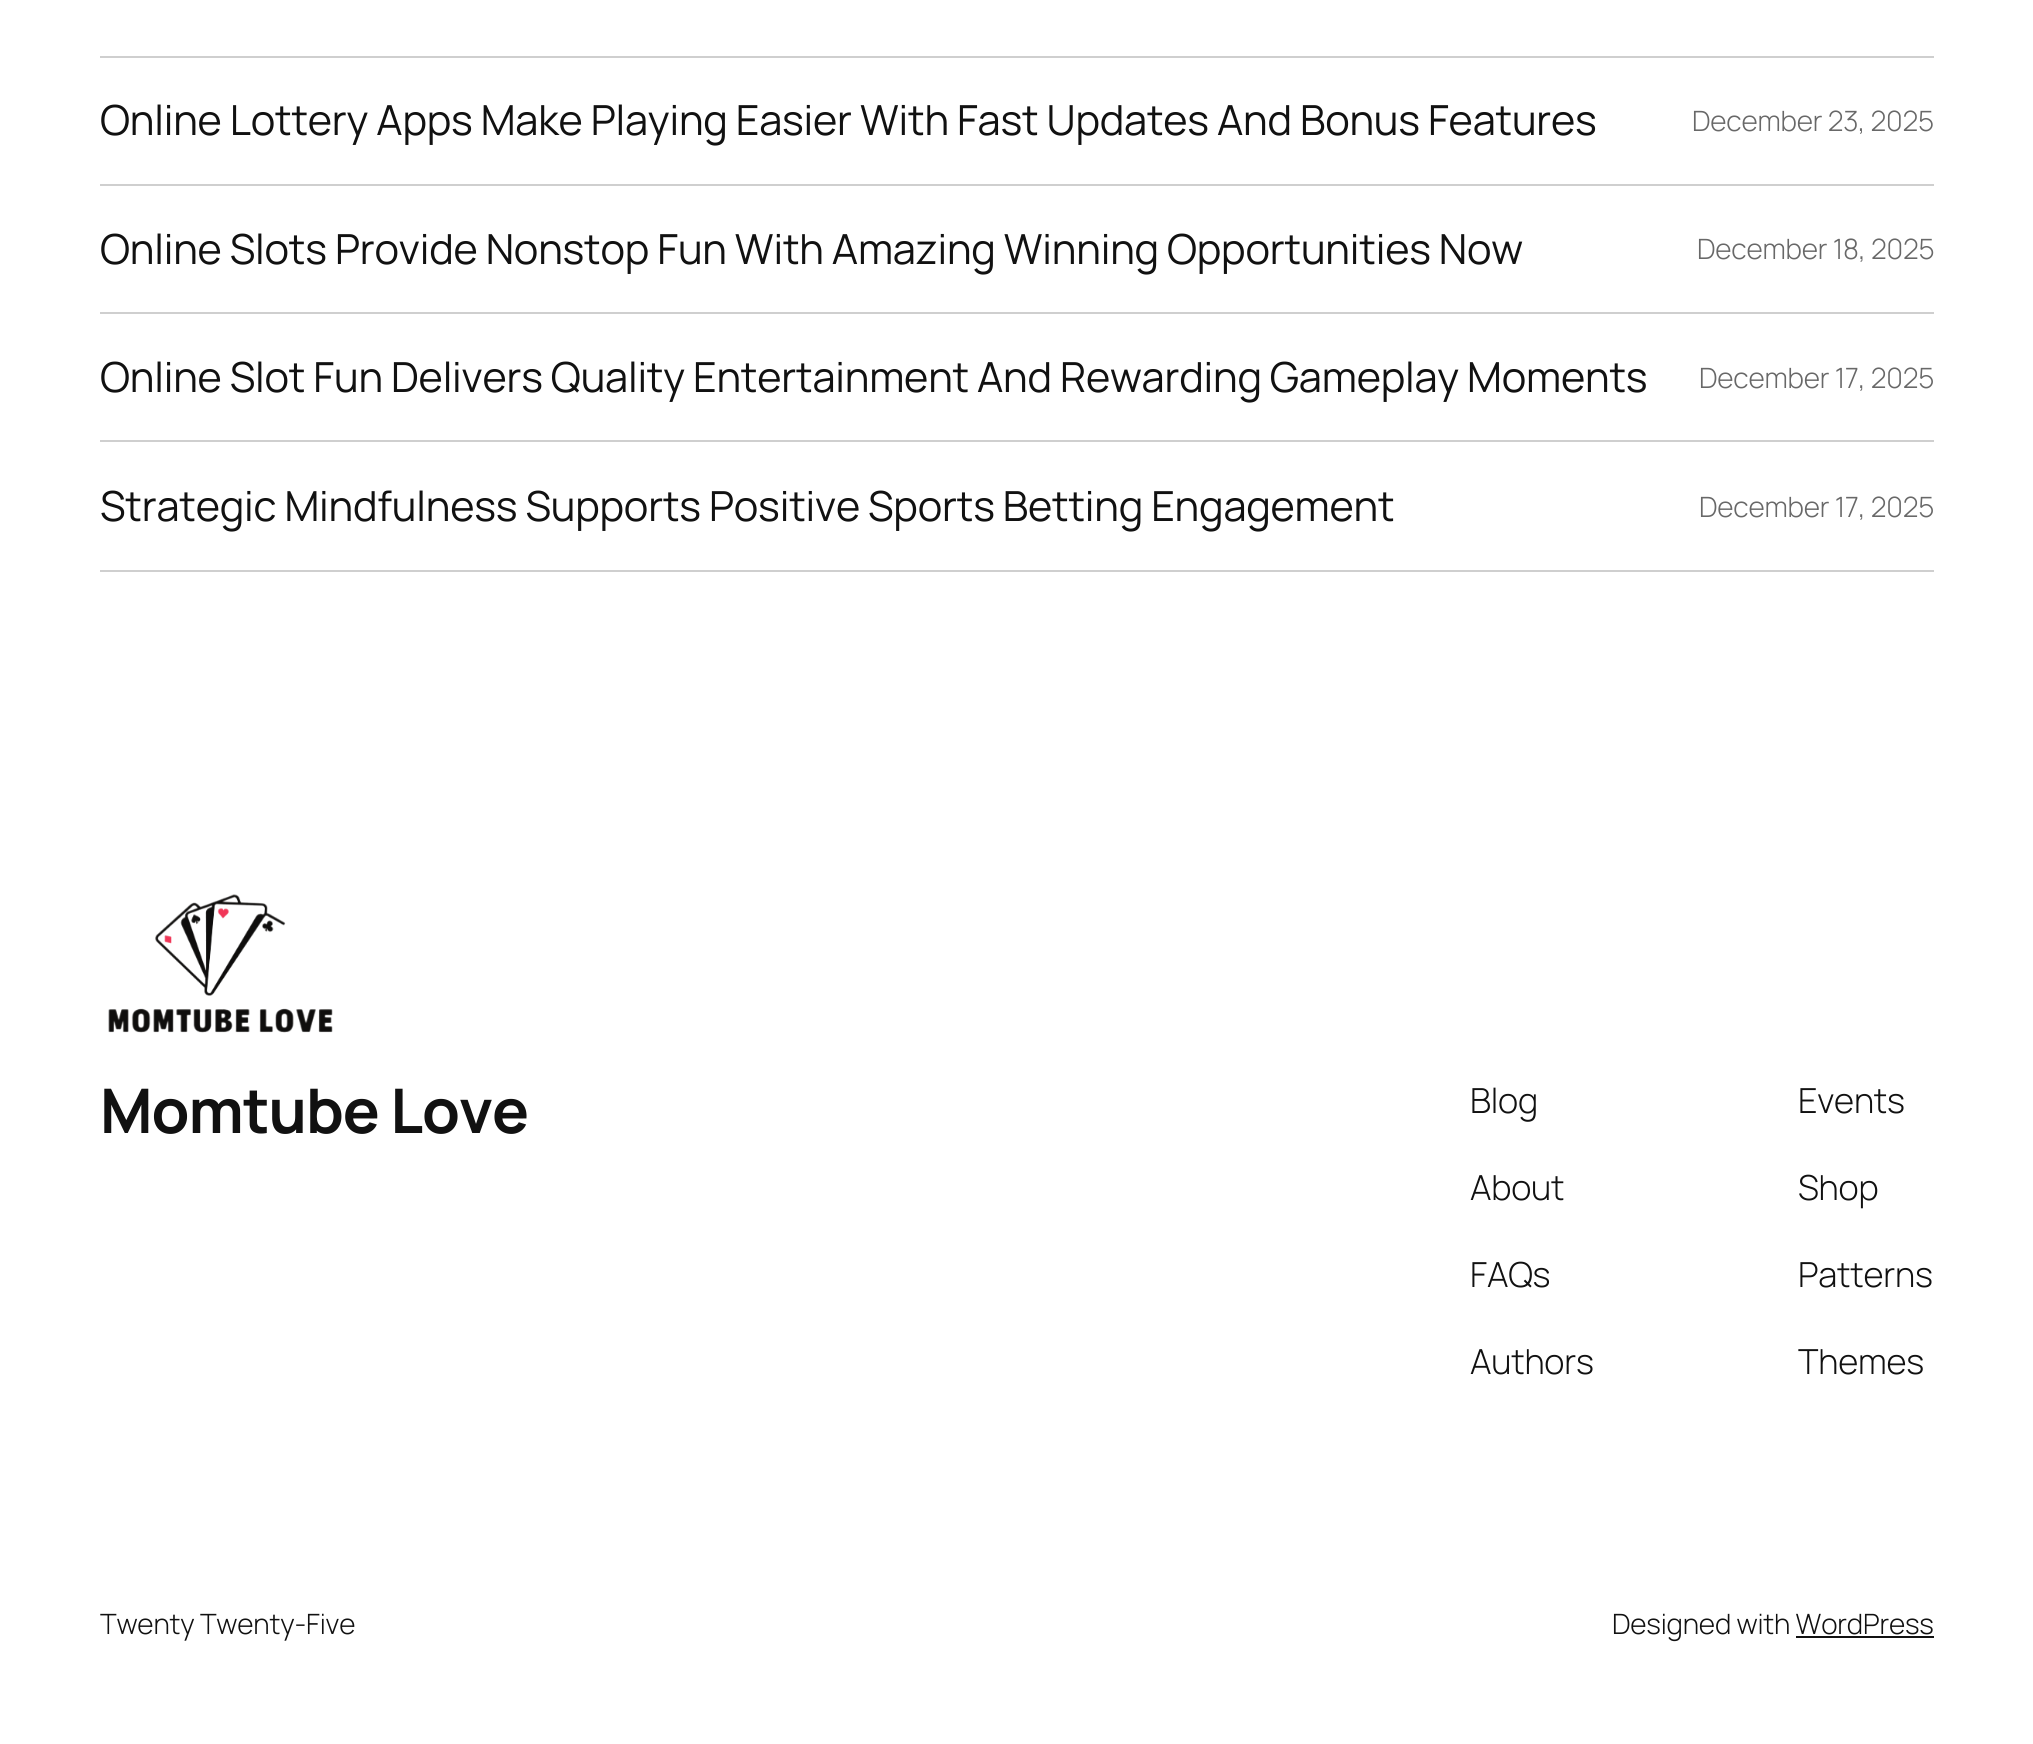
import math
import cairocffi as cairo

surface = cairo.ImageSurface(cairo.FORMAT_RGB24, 2033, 1744)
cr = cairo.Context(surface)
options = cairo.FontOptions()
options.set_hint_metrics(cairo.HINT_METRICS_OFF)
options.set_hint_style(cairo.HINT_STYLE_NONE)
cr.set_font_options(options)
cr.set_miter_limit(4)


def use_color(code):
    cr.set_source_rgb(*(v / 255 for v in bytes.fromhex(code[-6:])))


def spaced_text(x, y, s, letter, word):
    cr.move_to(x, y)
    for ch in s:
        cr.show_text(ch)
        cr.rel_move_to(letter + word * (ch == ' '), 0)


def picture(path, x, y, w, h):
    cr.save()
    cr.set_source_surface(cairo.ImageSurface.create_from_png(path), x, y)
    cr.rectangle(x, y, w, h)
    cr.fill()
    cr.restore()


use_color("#ffffff")
cr.paint()
use_color("#cfcfcf")
cr.rectangle(100, 56, 1834, 2)
cr.fill()
cr.rectangle(100, 184, 1834, 2)
cr.fill()
cr.select_font_face("Manrope")
cr.set_font_size(41.45)
use_color("#111111")
spaced_text(100, 135, "Online Lottery Apps Make Playing Easier With Fast Updates And Bonus Features", -0.2, 0)
cr.select_font_face("Manrope Light")
cr.set_font_size(28)
use_color("#686868")
spaced_text(1692, 131, "December 23, 2025", -0.2, 0)
use_color("#cfcfcf")
cr.rectangle(100, 312, 1834, 2)
cr.fill()
cr.select_font_face("Manrope")
cr.set_font_size(41.45)
use_color("#111111")
spaced_text(100, 264, "Online Slots Provide Nonstop Fun With Amazing Winning Opportunities Now", -0.2, 0)
cr.select_font_face("Manrope Light")
cr.set_font_size(28)
use_color("#686868")
spaced_text(1697, 259, "December 18, 2025", -0.2, 0)
use_color("#cfcfcf")
cr.rectangle(100, 440, 1834, 2)
cr.fill()
cr.select_font_face("Manrope")
cr.set_font_size(41.45)
use_color("#111111")
spaced_text(100, 392, "Online Slot Fun Delivers Quality Entertainment And Rewarding Gameplay Moments", -0.2, 0)
cr.select_font_face("Manrope Light")
cr.set_font_size(28)
use_color("#686868")
spaced_text(1699, 388, "December 17, 2025", -0.2, 0)
use_color("#cfcfcf")
cr.rectangle(100, 570, 1834, 2)
cr.fill()
cr.select_font_face("Manrope")
cr.set_font_size(41.45)
use_color("#111111")
spaced_text(100, 521, "Strategic Mindfulness Supports Positive Sports Betting Engagement", -0.2, 0)
cr.select_font_face("Manrope Light")
cr.set_font_size(28)
use_color("#686868")
spaced_text(1699, 517, "December 17, 2025", -0.2, 0)
picture("img1.png", 108, 894, 225, 139)
cr.select_font_face("Manrope", cairo.FONT_SLANT_NORMAL, cairo.FONT_WEIGHT_BOLD)
cr.set_font_size(61.5)
use_color("#111111")
spaced_text(100, 1133, "Momtube Love", -1, 0)
cr.select_font_face("Manrope Light")
cr.set_font_size(34.5)
spaced_text(1470, 1113, "Blog", -0.2, 0)
spaced_text(1470, 1200, "About", -0.2, 0)
spaced_text(1470, 1287, "FAQs", -0.2, 0)
spaced_text(1470, 1374, "Authors", -0.2, 0)
spaced_text(1798, 1113, "Events", -0.2, 0)
spaced_text(1798, 1200, "Shop", -0.2, 0)
spaced_text(1798, 1287, "Patterns", -0.2, 0)
spaced_text(1798, 1374, "Themes", -0.2, 0)
cr.set_font_size(28)
spaced_text(100, 1634, "Twenty Twenty-Five", -0.2, 0)
spaced_text(1612, 1634, "Designed with WordPress", -0.2, 0)
cr.rectangle(1796, 1636, 138, 2)
cr.fill()
surface.write_to_png("result.png")
